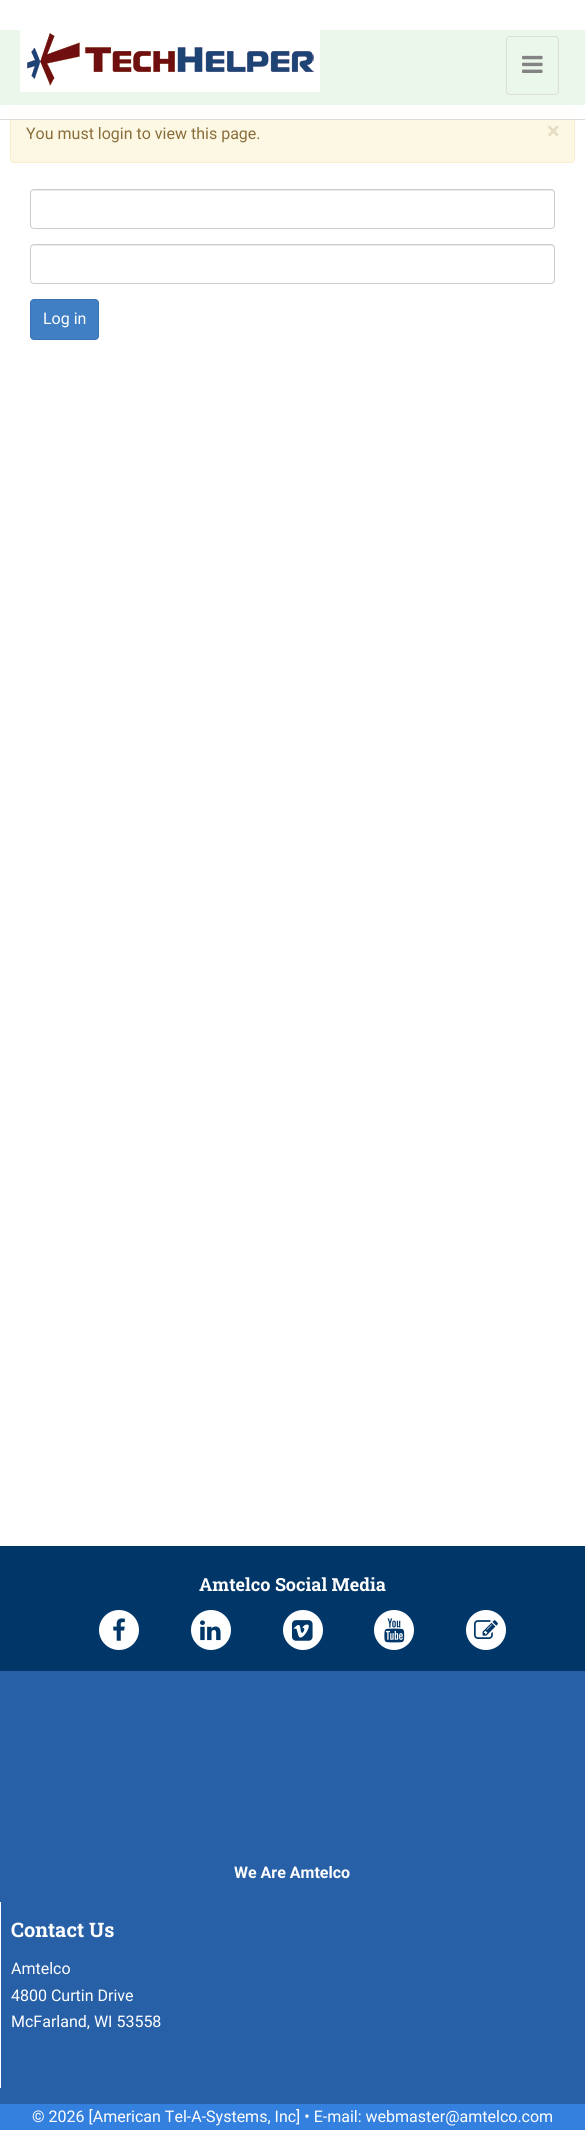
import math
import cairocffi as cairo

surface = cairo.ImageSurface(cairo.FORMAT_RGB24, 585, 2130)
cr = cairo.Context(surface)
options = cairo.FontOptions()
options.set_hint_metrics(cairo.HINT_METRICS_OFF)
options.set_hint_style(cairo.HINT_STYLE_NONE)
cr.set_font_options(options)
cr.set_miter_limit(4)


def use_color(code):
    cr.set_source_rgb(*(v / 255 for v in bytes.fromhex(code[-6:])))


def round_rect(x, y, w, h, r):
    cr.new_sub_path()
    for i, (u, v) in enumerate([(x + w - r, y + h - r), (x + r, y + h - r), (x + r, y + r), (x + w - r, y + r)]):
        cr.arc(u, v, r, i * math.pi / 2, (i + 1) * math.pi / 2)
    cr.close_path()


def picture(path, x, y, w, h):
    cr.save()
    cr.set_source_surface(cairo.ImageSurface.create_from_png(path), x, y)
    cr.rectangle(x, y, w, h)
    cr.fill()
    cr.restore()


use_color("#ffffff")
cr.paint()
use_color("#009800")
cr.rectangle(0, 30, 585, 75)
cr.fill()
use_color("#fcf8e3")
round_rect(10.5, 105.5, 564, 57, 3.5)
cr.fill_preserve()
use_color("#faebcc")
cr.set_line_width(1)
cr.stroke()
cr.set_source_rgba(1, 1, 1, 0.92)
cr.rectangle(0, 30, 585, 89)
cr.fill()
use_color("#dbdbdb")
cr.rectangle(0, 119, 585, 1)
cr.fill()
picture("img1.png", 20, 30, 300, 62)
round_rect(506.5, 36.5, 52, 58, 3.5)
use_color("#dddddd")
cr.stroke()
picture("img2.png", 522, 55, 21, 18)
cr.select_font_face("Roboto")
cr.set_font_size(16)
use_color("#8a6d3b")
cr.move_to(26, 139)
cr.show_text("You must login to view this page.")
cr.select_font_face("Roboto", cairo.FONT_SLANT_NORMAL, cairo.FONT_WEIGHT_BOLD)
cr.set_font_size(24)
use_color("#e5dcc1")
cr.move_to(547, 139)
cr.show_text("×")
use_color("#ececec")
cr.new_path()
cr.move_to(34, 191)
cr.line_to(551, 191)
cr.curve_to(553, 191, 554, 192, 554, 194)
cr.line_to(554, 192)
cr.line_to(552, 190)
cr.line_to(34, 190)
cr.curve_to(32, 190, 31, 192, 31, 194)
cr.curve_to(31, 192, 32, 191, 34, 191)
cr.close_path()
cr.fill()
round_rect(30.5, 189.5, 524, 39, 3.5)
use_color("#cccccc")
cr.stroke()
use_color("#ececec")
cr.new_path()
cr.move_to(34, 246)
cr.line_to(551, 246)
cr.curve_to(553, 246, 554, 247, 554, 249)
cr.line_to(554, 247)
cr.line_to(552, 245)
cr.line_to(34, 245)
cr.curve_to(32, 245, 31, 247, 31, 249)
cr.curve_to(31, 247, 32, 246, 34, 246)
cr.close_path()
cr.fill()
round_rect(30.5, 244.5, 524, 39, 3.5)
use_color("#cccccc")
cr.stroke()
use_color("#407fc3")
round_rect(30.5, 299.5, 68, 40, 3.5)
cr.fill_preserve()
use_color("#3872b2")
cr.stroke()
cr.select_font_face("Roboto")
cr.set_font_size(16)
use_color("#ffffff")
cr.move_to(43, 324)
cr.show_text("Log in")
use_color("#003668")
cr.rectangle(0, 1546, 585, 125)
cr.fill()
cr.select_font_face("Roboto Slab", cairo.FONT_SLANT_NORMAL, cairo.FONT_WEIGHT_BOLD)
cr.set_font_size(18)
use_color("#ffffff")
cr.move_to(199, 1591)
cr.show_text("Amtelco Social Media")
cr.new_path()
cr.arc(119, 1630, 20, 0, 2 * math.pi)
cr.fill()
picture("img3.png", 113, 1618, 12, 23)
cr.arc(211, 1630, 20, 0, 2 * math.pi)
cr.fill()
picture("img4.png", 200, 1620, 21, 21)
cr.arc(303, 1630, 20, 0, 2 * math.pi)
cr.fill()
picture("img5.png", 292, 1620, 21, 21)
cr.arc(394, 1630, 20, 0, 2 * math.pi)
cr.fill()
picture("img6.png", 384, 1618, 21, 25)
cr.arc(486, 1630, 20, 0, 2 * math.pi)
cr.fill()
picture("img7.png", 474, 1620, 24, 19)
use_color("#2760a7")
cr.rectangle(0, 1671, 585, 433)
cr.fill()
cr.select_font_face("Roboto", cairo.FONT_SLANT_NORMAL, cairo.FONT_WEIGHT_BOLD)
cr.set_font_size(16)
use_color("#ffffff")
cr.move_to(234, 1878)
cr.show_text("We Are Amtelco")
cr.rectangle(0, 1902, 1, 186)
cr.fill()
cr.select_font_face("Roboto Slab", cairo.FONT_SLANT_NORMAL, cairo.FONT_WEIGHT_BOLD)
cr.set_font_size(20)
cr.move_to(11, 1937)
cr.show_text("Contact Us")
cr.select_font_face("Roboto")
cr.set_font_size(16)
cr.move_to(11, 1974)
cr.show_text("Amtelco")
cr.move_to(11, 2001)
cr.show_text("4800 Curtin Drive")
cr.move_to(11, 2027)
cr.show_text("McFarland, WI 53558")
use_color("#3480de")
cr.rectangle(0, 2104, 585, 26)
cr.fill()
use_color("#ffffff")
cr.move_to(32, 2122)
cr.show_text("© 2026 [American Tel-A-Systems, Inc] • E-mail: webmaster@amtelco.com")
surface.write_to_png("result.png")
